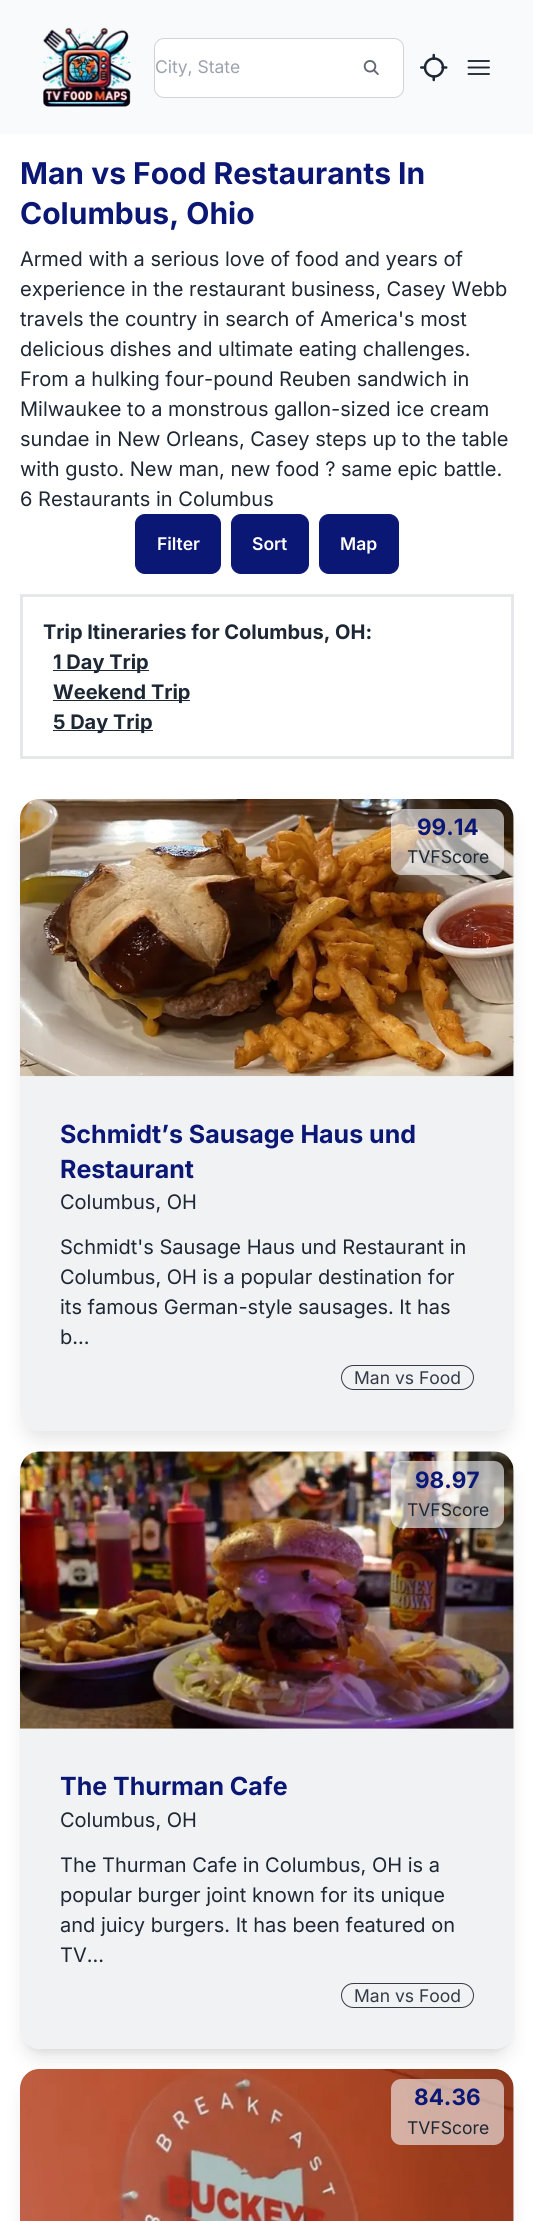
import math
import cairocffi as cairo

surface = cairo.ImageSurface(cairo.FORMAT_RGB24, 533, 2221)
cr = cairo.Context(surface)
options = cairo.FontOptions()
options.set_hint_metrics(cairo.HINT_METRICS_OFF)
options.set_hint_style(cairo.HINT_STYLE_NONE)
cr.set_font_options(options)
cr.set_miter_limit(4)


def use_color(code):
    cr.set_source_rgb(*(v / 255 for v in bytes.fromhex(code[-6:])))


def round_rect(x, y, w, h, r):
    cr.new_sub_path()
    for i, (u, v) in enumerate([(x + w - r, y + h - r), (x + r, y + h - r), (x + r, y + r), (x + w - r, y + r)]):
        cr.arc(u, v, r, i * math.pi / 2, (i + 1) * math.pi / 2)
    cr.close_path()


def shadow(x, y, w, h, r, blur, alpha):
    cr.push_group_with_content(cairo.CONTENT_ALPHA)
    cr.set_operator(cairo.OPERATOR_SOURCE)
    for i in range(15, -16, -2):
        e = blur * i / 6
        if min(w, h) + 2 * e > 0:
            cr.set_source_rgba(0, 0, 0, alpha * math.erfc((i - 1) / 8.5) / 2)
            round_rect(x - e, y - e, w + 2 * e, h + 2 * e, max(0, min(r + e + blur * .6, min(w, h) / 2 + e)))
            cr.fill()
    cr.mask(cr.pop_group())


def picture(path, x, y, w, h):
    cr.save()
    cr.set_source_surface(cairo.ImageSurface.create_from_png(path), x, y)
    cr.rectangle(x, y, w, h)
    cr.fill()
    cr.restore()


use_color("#ffffff")
cr.paint()
use_color("#f9fafb")
cr.rectangle(0, 0, 533, 134)
cr.fill()
picture("img1.png", 42, 27, 90, 80)
use_color("#ffffff")
round_rect(154, 38, 250, 60, 10)
cr.fill()
round_rect(154.5, 38.5, 249, 59, 9.5)
cr.set_source_rgba(0.118, 0.153, 0.204, 0.2)
cr.set_line_width(1)
cr.stroke()
cr.select_font_face("Inter")
cr.set_font_size(17.5)
use_color("#9ca3af")
cr.move_to(155, 73)
cr.show_text("City, State")
picture("img2.png", 363, 60, 16, 15)
picture("img3.png", 420, 53, 28, 29)
cr.new_path()
cr.move_to(468.5, 61)
cr.line_to(489, 61)
cr.move_to(468.5, 67.5)
cr.line_to(489, 67.5)
cr.move_to(468.5, 74)
cr.line_to(489, 74)
use_color("#1e2734")
cr.set_line_width(1.9)
cr.set_line_cap(cairo.LINE_CAP_ROUND)
cr.set_line_join(cairo.LINE_JOIN_ROUND)
cr.stroke()
cr.select_font_face("Inter", cairo.FONT_SLANT_NORMAL, cairo.FONT_WEIGHT_BOLD)
cr.set_font_size(30)
use_color("#0b1775")
cr.move_to(20, 184)
cr.show_text("Man vs Food Restaurants In")
cr.move_to(20, 224)
cr.show_text("Columbus, Ohio")
cr.select_font_face("Inter")
cr.set_font_size(20)
use_color("#1e2734")
cr.move_to(20, 266)
cr.show_text("Armed with a serious love of food and years of")
cr.move_to(20, 296)
cr.show_text("experience in the restaurant business, Casey Webb")
cr.move_to(20, 326)
cr.show_text("travels the country in search of America's most")
cr.move_to(20, 356)
cr.show_text("delicious dishes and ultimate eating challenges.")
cr.move_to(20, 386)
cr.show_text("From a hulking four-pound Reuben sandwich in")
cr.move_to(20, 416)
cr.show_text("Milwaukee to a monstrous gallon-sized ice cream")
cr.move_to(20, 446)
cr.show_text("sundae in New Orleans, Casey steps up to the table")
cr.move_to(20, 476)
cr.show_text("with gusto. New man, new food ? same epic battle.")
cr.move_to(20, 506)
cr.show_text("6 Restaurants in Columbus")
use_color("#0b1775")
round_rect(135.5, 514.5, 85, 59, 9.5)
cr.fill_preserve()
cr.set_line_width(1)
cr.set_line_cap(cairo.LINE_CAP_BUTT)
cr.set_line_join(cairo.LINE_JOIN_MITER)
cr.stroke()
cr.select_font_face("Inter SemiBold")
cr.set_font_size(17.5)
use_color("#ffffff")
cr.move_to(157, 550)
cr.show_text("Filter")
use_color("#0b1775")
round_rect(231.5, 514.5, 77, 59, 9.5)
cr.fill_preserve()
cr.stroke()
use_color("#ffffff")
cr.move_to(252, 550)
cr.show_text("Sort")
use_color("#0b1775")
round_rect(319.5, 514.5, 79, 59, 9.5)
cr.fill_preserve()
cr.stroke()
use_color("#ffffff")
cr.move_to(340, 550)
cr.show_text("Map")
cr.rectangle(21.5, 595.5, 491, 162)
use_color("#e5e7eb")
cr.set_line_width(3)
cr.stroke()
cr.select_font_face("Inter", cairo.FONT_SLANT_NORMAL, cairo.FONT_WEIGHT_BOLD)
cr.set_font_size(20)
use_color("#1e2734")
cr.move_to(43, 639)
cr.show_text("Trip Itineraries for Columbus, OH:")
cr.rectangle(53, 670, 96, 1)
cr.fill()
cr.move_to(53, 669)
cr.show_text("1 Day Trip")
cr.rectangle(53, 700, 137, 1)
cr.fill()
cr.move_to(53, 699)
cr.show_text("Weekend Trip")
cr.rectangle(53, 730, 100, 1)
cr.fill()
cr.move_to(53, 729)
cr.show_text("5 Day Trip")
cr.save()
cr.set_fill_rule(cairo.FILL_RULE_EVEN_ODD)
cr.new_path()
cr.move_to(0, 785)
cr.line_to(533, 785)
cr.line_to(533, 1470)
cr.line_to(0, 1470)
cr.close_path()
cr.move_to(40, 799)
cr.line_to(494, 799)
cr.curve_to(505, 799, 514, 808, 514, 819)
cr.line_to(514, 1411)
cr.curve_to(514, 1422, 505, 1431, 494, 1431)
cr.line_to(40, 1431)
cr.curve_to(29, 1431, 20, 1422, 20, 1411)
cr.line_to(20, 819)
cr.curve_to(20, 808, 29, 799, 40, 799)
cr.close_path()
cr.clip()
use_color("#000000")
shadow(24, 815, 486, 625, 16, 9.5, 0.1)
cr.restore()
cr.set_source_rgba(0.808, 0.827, 0.851, 0.3)
round_rect(20, 799, 494, 632, 20)
cr.fill()
picture("img4.png", 20, 799, 494, 278)
cr.set_source_rgba(0.976, 0.98, 0.984, 0.6)
round_rect(391, 809, 113, 66, 10)
cr.fill()
cr.set_font_size(22.5)
use_color("#0b1775")
cr.move_to(417, 835)
cr.show_text("99.14")
cr.select_font_face("Inter")
cr.set_font_size(17.5)
use_color("#1e2734")
cr.move_to(407, 863)
cr.show_text("TVFScore")
cr.select_font_face("Inter", cairo.FONT_SLANT_NORMAL, cairo.FONT_WEIGHT_BOLD)
cr.set_font_size(25)
use_color("#0b1775")
cr.move_to(60, 1143)
cr.show_text("Schmidt’s Sausage Haus und")
cr.move_to(60, 1178)
cr.show_text("Restaurant")
cr.select_font_face("Inter")
cr.set_font_size(20)
use_color("#1e2734")
cr.move_to(60, 1209)
cr.show_text("Columbus, OH")
cr.move_to(60, 1254)
cr.show_text("Schmidt's Sausage Haus und Restaurant in")
cr.move_to(60, 1284)
cr.show_text("Columbus, OH is a popular destination for")
cr.move_to(60, 1314)
cr.show_text("its famous German-style sausages. It has")
cr.move_to(60, 1344)
cr.show_text("b...")
round_rect(341.5, 1365.5, 132, 24, 12)
use_color("#333b47")
cr.set_line_width(1)
cr.stroke()
cr.set_font_size(17.5)
cr.move_to(354, 1384)
cr.show_text("Man vs Food")
cr.save()
cr.set_fill_rule(cairo.FILL_RULE_EVEN_ODD)
cr.new_path()
cr.move_to(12, 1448)
cr.line_to(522, 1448)
cr.line_to(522, 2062)
cr.line_to(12, 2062)
cr.close_path()
cr.move_to(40, 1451)
cr.line_to(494, 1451)
cr.curve_to(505, 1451, 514, 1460, 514, 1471)
cr.line_to(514, 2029)
cr.curve_to(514, 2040, 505, 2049, 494, 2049)
cr.line_to(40, 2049)
cr.curve_to(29, 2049, 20, 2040, 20, 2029)
cr.line_to(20, 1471)
cr.curve_to(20, 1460, 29, 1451, 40, 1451)
cr.close_path()
cr.clip()
use_color("#000000")
shadow(25, 1461, 484, 588, 15, 4, 0.1)
cr.restore()
cr.save()
cr.set_fill_rule(cairo.FILL_RULE_EVEN_ODD)
cr.new_path()
cr.move_to(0, 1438)
cr.line_to(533, 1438)
cr.line_to(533, 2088)
cr.line_to(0, 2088)
cr.close_path()
cr.move_to(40, 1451)
cr.line_to(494, 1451)
cr.curve_to(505, 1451, 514, 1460, 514, 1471)
cr.line_to(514, 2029)
cr.curve_to(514, 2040, 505, 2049, 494, 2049)
cr.line_to(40, 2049)
cr.curve_to(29, 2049, 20, 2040, 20, 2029)
cr.line_to(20, 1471)
cr.curve_to(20, 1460, 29, 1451, 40, 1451)
cr.close_path()
cr.clip()
use_color("#000000")
shadow(24, 1468, 486, 590, 16, 9.5, 0.1)
cr.restore()
cr.set_source_rgba(0.808, 0.827, 0.851, 0.3)
round_rect(20, 1451, 494, 598, 20)
cr.fill()
picture("img5.png", 20, 1451, 494, 278)
cr.set_source_rgba(0.976, 0.98, 0.984, 0.6)
round_rect(391, 1461, 113, 67, 10)
cr.fill()
cr.select_font_face("Inter", cairo.FONT_SLANT_NORMAL, cairo.FONT_WEIGHT_BOLD)
cr.set_font_size(22.5)
use_color("#0b1775")
cr.move_to(415, 1488)
cr.show_text("98.97")
cr.select_font_face("Inter")
cr.set_font_size(17.5)
use_color("#1e2734")
cr.move_to(407, 1516)
cr.show_text("TVFScore")
cr.select_font_face("Inter", cairo.FONT_SLANT_NORMAL, cairo.FONT_WEIGHT_BOLD)
cr.set_font_size(25)
use_color("#0b1775")
cr.move_to(60, 1795)
cr.show_text("The Thurman Cafe")
cr.select_font_face("Inter")
cr.set_font_size(20)
use_color("#1e2734")
cr.move_to(60, 1827)
cr.show_text("Columbus, OH")
cr.move_to(60, 1872)
cr.show_text("The Thurman Cafe in Columbus, OH is a")
cr.move_to(60, 1902)
cr.show_text("popular burger joint known for its unique")
cr.move_to(60, 1932)
cr.show_text("and juicy burgers. It has been featured on")
cr.move_to(60, 1962)
cr.show_text("TV...")
round_rect(341.5, 1983.5, 132, 24, 12)
use_color("#333b47")
cr.stroke()
cr.set_font_size(17.5)
cr.move_to(354, 2002)
cr.show_text("Man vs Food")
use_color("#000000")
shadow(24, 2085, 486, 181, 16, 9.5, 0.1)
cr.set_source_rgba(0.808, 0.827, 0.851, 0.3)
round_rect(20, 2069, 494, 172, 20)
cr.fill()
picture("img6.png", 20, 2069, 494, 152)
cr.set_source_rgba(0.976, 0.98, 0.984, 0.6)
round_rect(391, 2079, 113, 66, 10)
cr.fill()
cr.select_font_face("Inter", cairo.FONT_SLANT_NORMAL, cairo.FONT_WEIGHT_BOLD)
cr.set_font_size(22.5)
use_color("#0b1775")
cr.move_to(414, 2105)
cr.show_text("84.36")
cr.select_font_face("Inter")
cr.set_font_size(17.5)
use_color("#1e2734")
cr.move_to(407, 2134)
cr.show_text("TVFScore")
surface.write_to_png("result.png")
